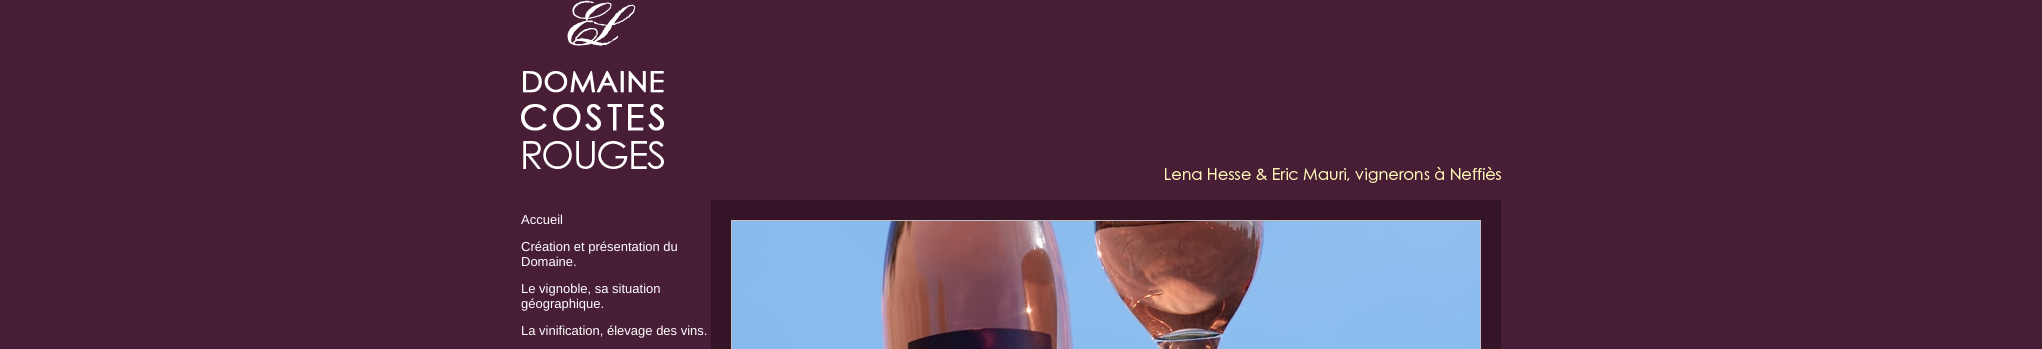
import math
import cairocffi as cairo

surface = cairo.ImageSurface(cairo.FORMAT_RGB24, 2042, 349)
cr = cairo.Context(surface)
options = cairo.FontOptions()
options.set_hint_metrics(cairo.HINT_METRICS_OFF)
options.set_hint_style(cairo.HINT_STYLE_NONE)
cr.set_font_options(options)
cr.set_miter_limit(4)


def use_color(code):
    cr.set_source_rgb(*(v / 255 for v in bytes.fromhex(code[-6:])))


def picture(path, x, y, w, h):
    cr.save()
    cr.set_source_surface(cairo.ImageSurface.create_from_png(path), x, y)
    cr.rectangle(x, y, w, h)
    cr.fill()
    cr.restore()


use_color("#481e36")
cr.paint()
picture("img1.png", 1165, 167, 336, 16)
picture("img2.png", 521, 0, 143, 169)
cr.select_font_face("Liberation Sans")
cr.set_font_size(13)
use_color("#ffffff")
cr.move_to(521, 224)
cr.show_text("Accueil")
cr.move_to(521, 251)
cr.show_text("Création et présentation du")
cr.move_to(521, 266)
cr.show_text("Domaine.")
cr.move_to(521, 293)
cr.show_text("Le vignoble, sa situation")
cr.move_to(521, 308)
cr.show_text("géographique.")
cr.move_to(521, 335)
cr.show_text("La vinification, élevage des vins.")
use_color("#361428")
cr.rectangle(731, 200, 750, 20)
cr.fill()
cr.rectangle(1481, 200, 20, 149)
cr.fill()
cr.rectangle(711, 200, 20, 149)
cr.fill()
cr.rectangle(731.5, 220.5, 749, 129)
use_color("#c3c0c2")
cr.set_line_width(1)
cr.stroke()
picture("img3.png", 732, 221, 748, 128)
surface.write_to_png("result.png")
